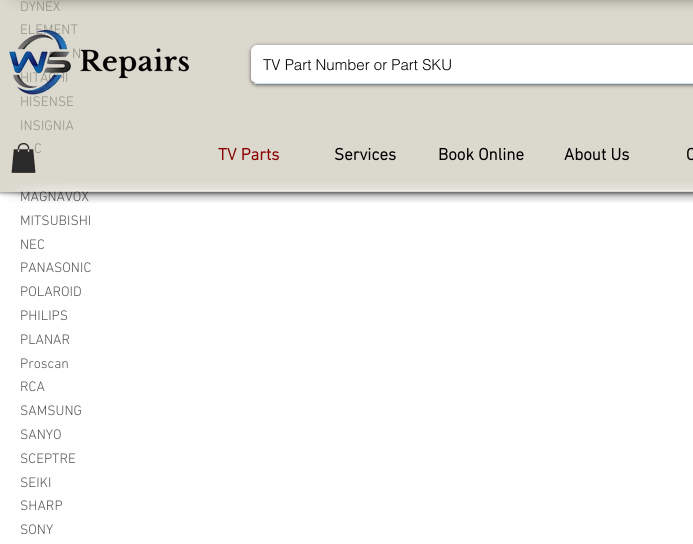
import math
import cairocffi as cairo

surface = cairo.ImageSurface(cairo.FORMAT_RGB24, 693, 544)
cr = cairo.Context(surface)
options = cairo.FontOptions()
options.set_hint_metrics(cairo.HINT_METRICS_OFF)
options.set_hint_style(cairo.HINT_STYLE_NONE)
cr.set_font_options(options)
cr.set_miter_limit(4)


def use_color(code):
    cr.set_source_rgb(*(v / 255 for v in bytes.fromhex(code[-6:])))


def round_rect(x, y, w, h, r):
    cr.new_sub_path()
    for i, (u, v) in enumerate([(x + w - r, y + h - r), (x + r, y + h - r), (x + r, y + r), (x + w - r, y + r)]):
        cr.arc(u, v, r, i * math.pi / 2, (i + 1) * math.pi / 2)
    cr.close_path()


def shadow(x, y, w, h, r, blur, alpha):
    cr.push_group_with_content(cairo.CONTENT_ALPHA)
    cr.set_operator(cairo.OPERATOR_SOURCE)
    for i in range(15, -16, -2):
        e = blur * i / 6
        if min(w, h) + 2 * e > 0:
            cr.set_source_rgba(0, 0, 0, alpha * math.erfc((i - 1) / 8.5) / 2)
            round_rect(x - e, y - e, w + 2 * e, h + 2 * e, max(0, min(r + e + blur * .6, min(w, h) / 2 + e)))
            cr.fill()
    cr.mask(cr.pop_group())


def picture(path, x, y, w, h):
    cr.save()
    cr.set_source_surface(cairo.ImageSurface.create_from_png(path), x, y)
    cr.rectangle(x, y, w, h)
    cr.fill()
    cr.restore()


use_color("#ffffff")
cr.paint()
cr.select_font_face("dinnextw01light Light")
cr.set_font_size(14)
use_color("#555555")
cr.move_to(20, 11)
cr.show_text("DYNEX")
cr.move_to(20, 34)
cr.show_text("ELEMENT")
cr.move_to(72, 58)
cr.show_text("N")
cr.move_to(20, 82)
cr.show_text("HITACHI")
cr.move_to(20, 106)
cr.show_text("HISENSE")
cr.move_to(20, 130)
cr.show_text("INSIGNIA")
cr.move_to(34, 153)
cr.show_text("C")
cr.move_to(20, 201)
cr.show_text("MAGNAVOX")
cr.move_to(20, 225)
cr.show_text("MITSUBISHI")
cr.move_to(20, 249)
cr.show_text("NEC")
cr.move_to(20, 272)
cr.show_text("PANASONIC")
cr.move_to(20, 296)
cr.show_text("POLAROID")
cr.move_to(20, 320)
cr.show_text("PHILIPS")
cr.move_to(20, 344)
cr.show_text("PLANAR")
cr.move_to(20, 368)
cr.show_text("Proscan")
cr.move_to(20, 391)
cr.show_text("RCA")
cr.move_to(20, 415)
cr.show_text("SAMSUNG")
cr.move_to(20, 439)
cr.show_text("SANYO")
cr.move_to(20, 463)
cr.show_text("SCEPTRE")
cr.move_to(20, 487)
cr.show_text("SEIKI")
cr.move_to(20, 510)
cr.show_text("SHARP")
cr.move_to(20, 534)
cr.show_text("SONY")
picture("img1.png", 3, 0, 97, 11)
picture("img2.png", 100, 0, 593, 11)
cr.save()
cr.rectangle(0, 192, 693, 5)
cr.clip()
use_color("#000000")
shadow(0, 0, 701, 192, 0, 2.5, 0.7)
cr.restore()
cr.set_source_rgba(0.761, 0.737, 0.671, 0.58)
cr.rectangle(0, 0, 693, 192)
cr.fill()
picture("img3.png", 9, 29, 181, 66)
use_color("#000000")
shadow(251, 46, 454, 39, 6, 2, 0.6)
use_color("#ffffff")
cr.new_path()
cr.move_to(257, 45)
cr.line_to(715, 45)
cr.curve_to(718, 45, 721, 48, 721, 51)
cr.line_to(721, 78)
cr.curve_to(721, 81, 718, 83, 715, 83)
cr.line_to(257, 83)
cr.curve_to(254, 83, 251, 81, 251, 78)
cr.line_to(251, 51)
cr.curve_to(251, 48, 254, 45, 257, 45)
cr.close_path()
cr.fill()
use_color("#c6e2f7")
cr.rectangle(254, 83, 439, 1)
cr.fill()
cr.select_font_face("helvetica Light")
cr.set_font_size(15)
use_color("#000000")
cr.move_to(263, 70)
cr.show_text("TV Part Number or Part SKU")
picture("img4.png", 11, 143, 25, 30)
cr.select_font_face("dinnextw01light", cairo.FONT_SLANT_NORMAL, cairo.FONT_WEIGHT_BOLD)
cr.set_font_size(17)
use_color("#8b0000")
cr.move_to(218, 160)
cr.show_text("TV Parts")
use_color("#000000")
cr.move_to(334, 160)
cr.show_text("Services")
cr.move_to(438, 160)
cr.show_text("Book Online")
cr.move_to(564, 160)
cr.show_text("About Us")
cr.move_to(686, 160)
cr.show_text("C")
picture("img5.png", 3, 183, 97, 20)
picture("img6.png", 100, 183, 593, 20)
surface.write_to_png("result.png")
